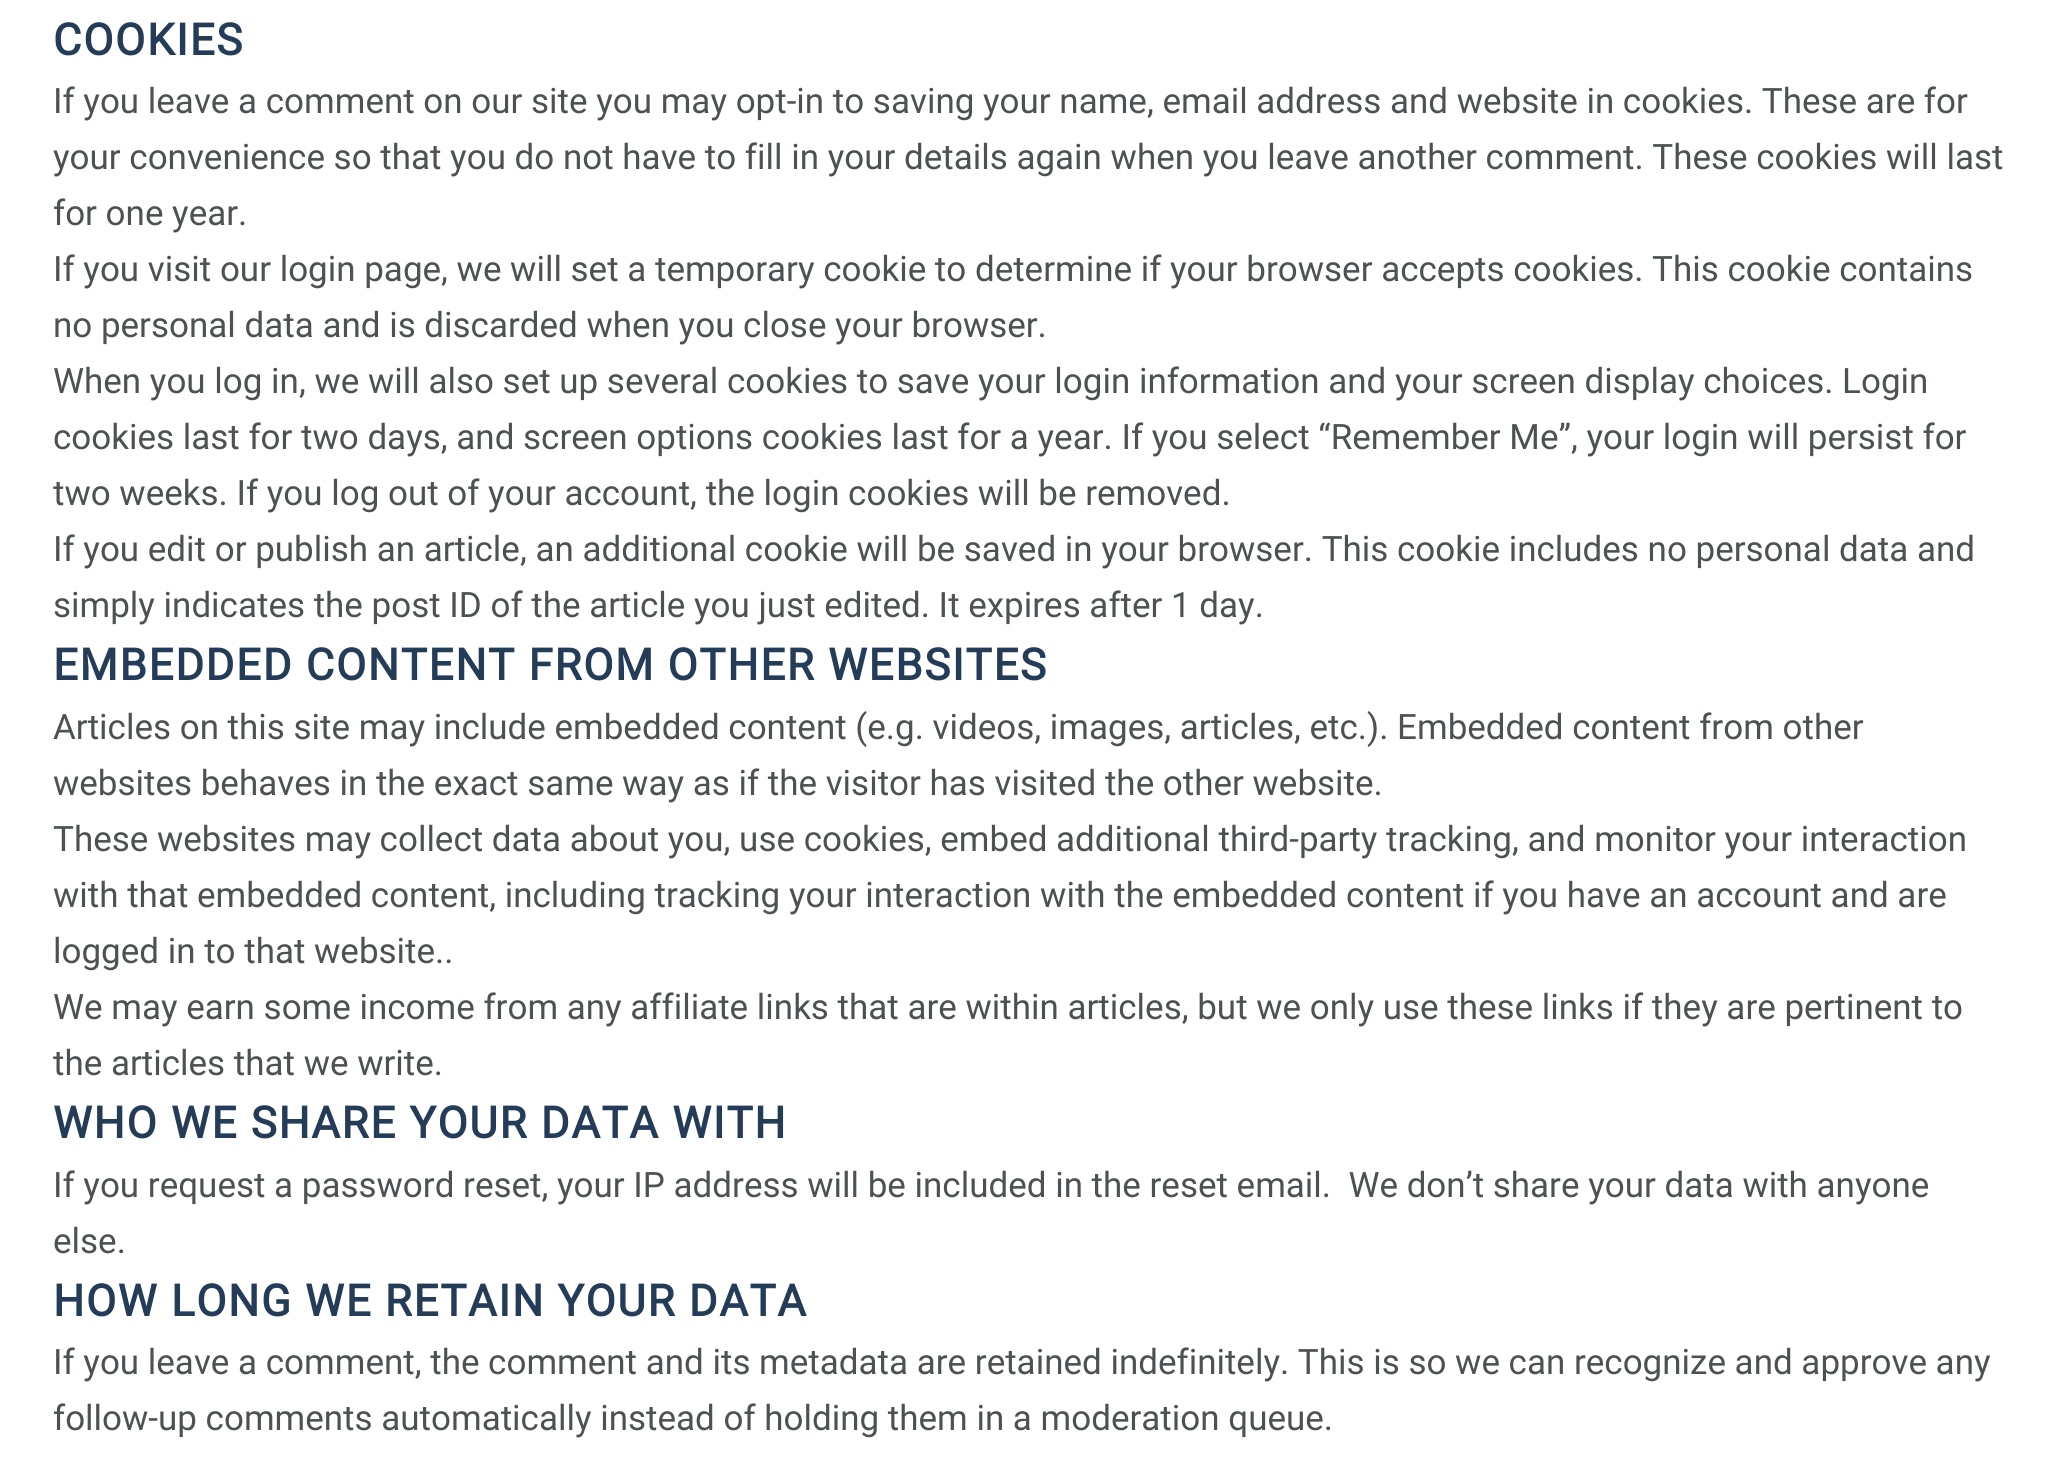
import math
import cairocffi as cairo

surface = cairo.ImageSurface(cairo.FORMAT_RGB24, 2060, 1462)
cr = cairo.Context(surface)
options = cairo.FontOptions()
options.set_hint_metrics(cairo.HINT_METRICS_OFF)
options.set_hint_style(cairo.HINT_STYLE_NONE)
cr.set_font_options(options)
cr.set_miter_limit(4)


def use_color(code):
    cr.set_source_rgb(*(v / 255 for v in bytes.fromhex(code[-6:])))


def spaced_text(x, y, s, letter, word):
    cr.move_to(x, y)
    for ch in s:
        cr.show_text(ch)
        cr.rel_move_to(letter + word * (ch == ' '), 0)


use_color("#ffffff")
cr.paint()
cr.select_font_face("Roboto", cairo.FONT_SLANT_NORMAL, cairo.FONT_WEIGHT_BOLD)
cr.set_font_size(43.75)
use_color("#253c59")
spaced_text(53, 55, "COOKIES", 1.75, 0)
cr.select_font_face("Roboto")
cr.set_font_size(35)
use_color("#4c5253")
cr.move_to(53, 113)
cr.show_text("If you leave a comment on our site you may opt-in to saving your name, email address and website in cookies. These are for")
cr.move_to(53, 169)
cr.show_text("your convenience so that you do not have to fill in your details again when you leave another comment. These cookies will last")
cr.move_to(53, 225)
cr.show_text("for one year.")
cr.move_to(53, 281)
cr.show_text("If you visit our login page, we will set a temporary cookie to determine if your browser accepts cookies. This cookie contains")
cr.move_to(53, 337)
cr.show_text("no personal data and is discarded when you close your browser.")
cr.move_to(53, 393)
cr.show_text("When you log in, we will also set up several cookies to save your login information and your screen display choices. Login")
cr.move_to(53, 449)
cr.show_text("cookies last for two days, and screen options cookies last for a year. If you select “Remember Me”, your login will persist for")
cr.move_to(53, 505)
cr.show_text("two weeks. If you log out of your account, the login cookies will be removed.")
cr.move_to(53, 561)
cr.show_text("If you edit or publish an article, an additional cookie will be saved in your browser. This cookie includes no personal data and")
cr.move_to(53, 617)
cr.show_text("simply indicates the post ID of the article you just edited. It expires after 1 day.")
cr.select_font_face("Roboto", cairo.FONT_SLANT_NORMAL, cairo.FONT_WEIGHT_BOLD)
cr.set_font_size(43.75)
use_color("#253c59")
spaced_text(53, 680, "EMBEDDED CONTENT FROM OTHER WEBSITES", 1.75, 0)
cr.select_font_face("Roboto")
cr.set_font_size(35)
use_color("#4c5253")
cr.move_to(53, 739)
cr.show_text("Articles on this site may include embedded content (e.g. videos, images, articles, etc.). Embedded content from other")
cr.move_to(53, 795)
cr.show_text("websites behaves in the exact same way as if the visitor has visited the other website.")
cr.move_to(53, 851)
cr.show_text("These websites may collect data about you, use cookies, embed additional third-party tracking, and monitor your interaction")
cr.move_to(53, 907)
cr.show_text("with that embedded content, including tracking your interaction with the embedded content if you have an account and are")
cr.move_to(53, 963)
cr.show_text("logged in to that website..")
cr.move_to(53, 1019)
cr.show_text("We may earn some income from any affiliate links that are within articles, but we only use these links if they are pertinent to")
cr.move_to(53, 1075)
cr.show_text("the articles that we write.")
cr.select_font_face("Roboto", cairo.FONT_SLANT_NORMAL, cairo.FONT_WEIGHT_BOLD)
cr.set_font_size(43.75)
use_color("#253c59")
spaced_text(53, 1138, "WHO WE SHARE YOUR DATA WITH", 1.75, 0)
cr.select_font_face("Roboto")
cr.set_font_size(35)
use_color("#4c5253")
cr.move_to(53, 1197)
cr.show_text("If you request a password reset, your IP address will be included in the reset email.  We don’t share your data with anyone")
cr.move_to(53, 1253)
cr.show_text("else.")
cr.select_font_face("Roboto", cairo.FONT_SLANT_NORMAL, cairo.FONT_WEIGHT_BOLD)
cr.set_font_size(43.75)
use_color("#253c59")
spaced_text(53, 1316, "HOW LONG WE RETAIN YOUR DATA", 1.75, 0)
cr.select_font_face("Roboto")
cr.set_font_size(35)
use_color("#4c5253")
cr.move_to(53, 1374)
cr.show_text("If you leave a comment, the comment and its metadata are retained indefinitely. This is so we can recognize and approve any")
cr.move_to(53, 1430)
cr.show_text("follow-up comments automatically instead of holding them in a moderation queue.")
surface.write_to_png("result.png")
